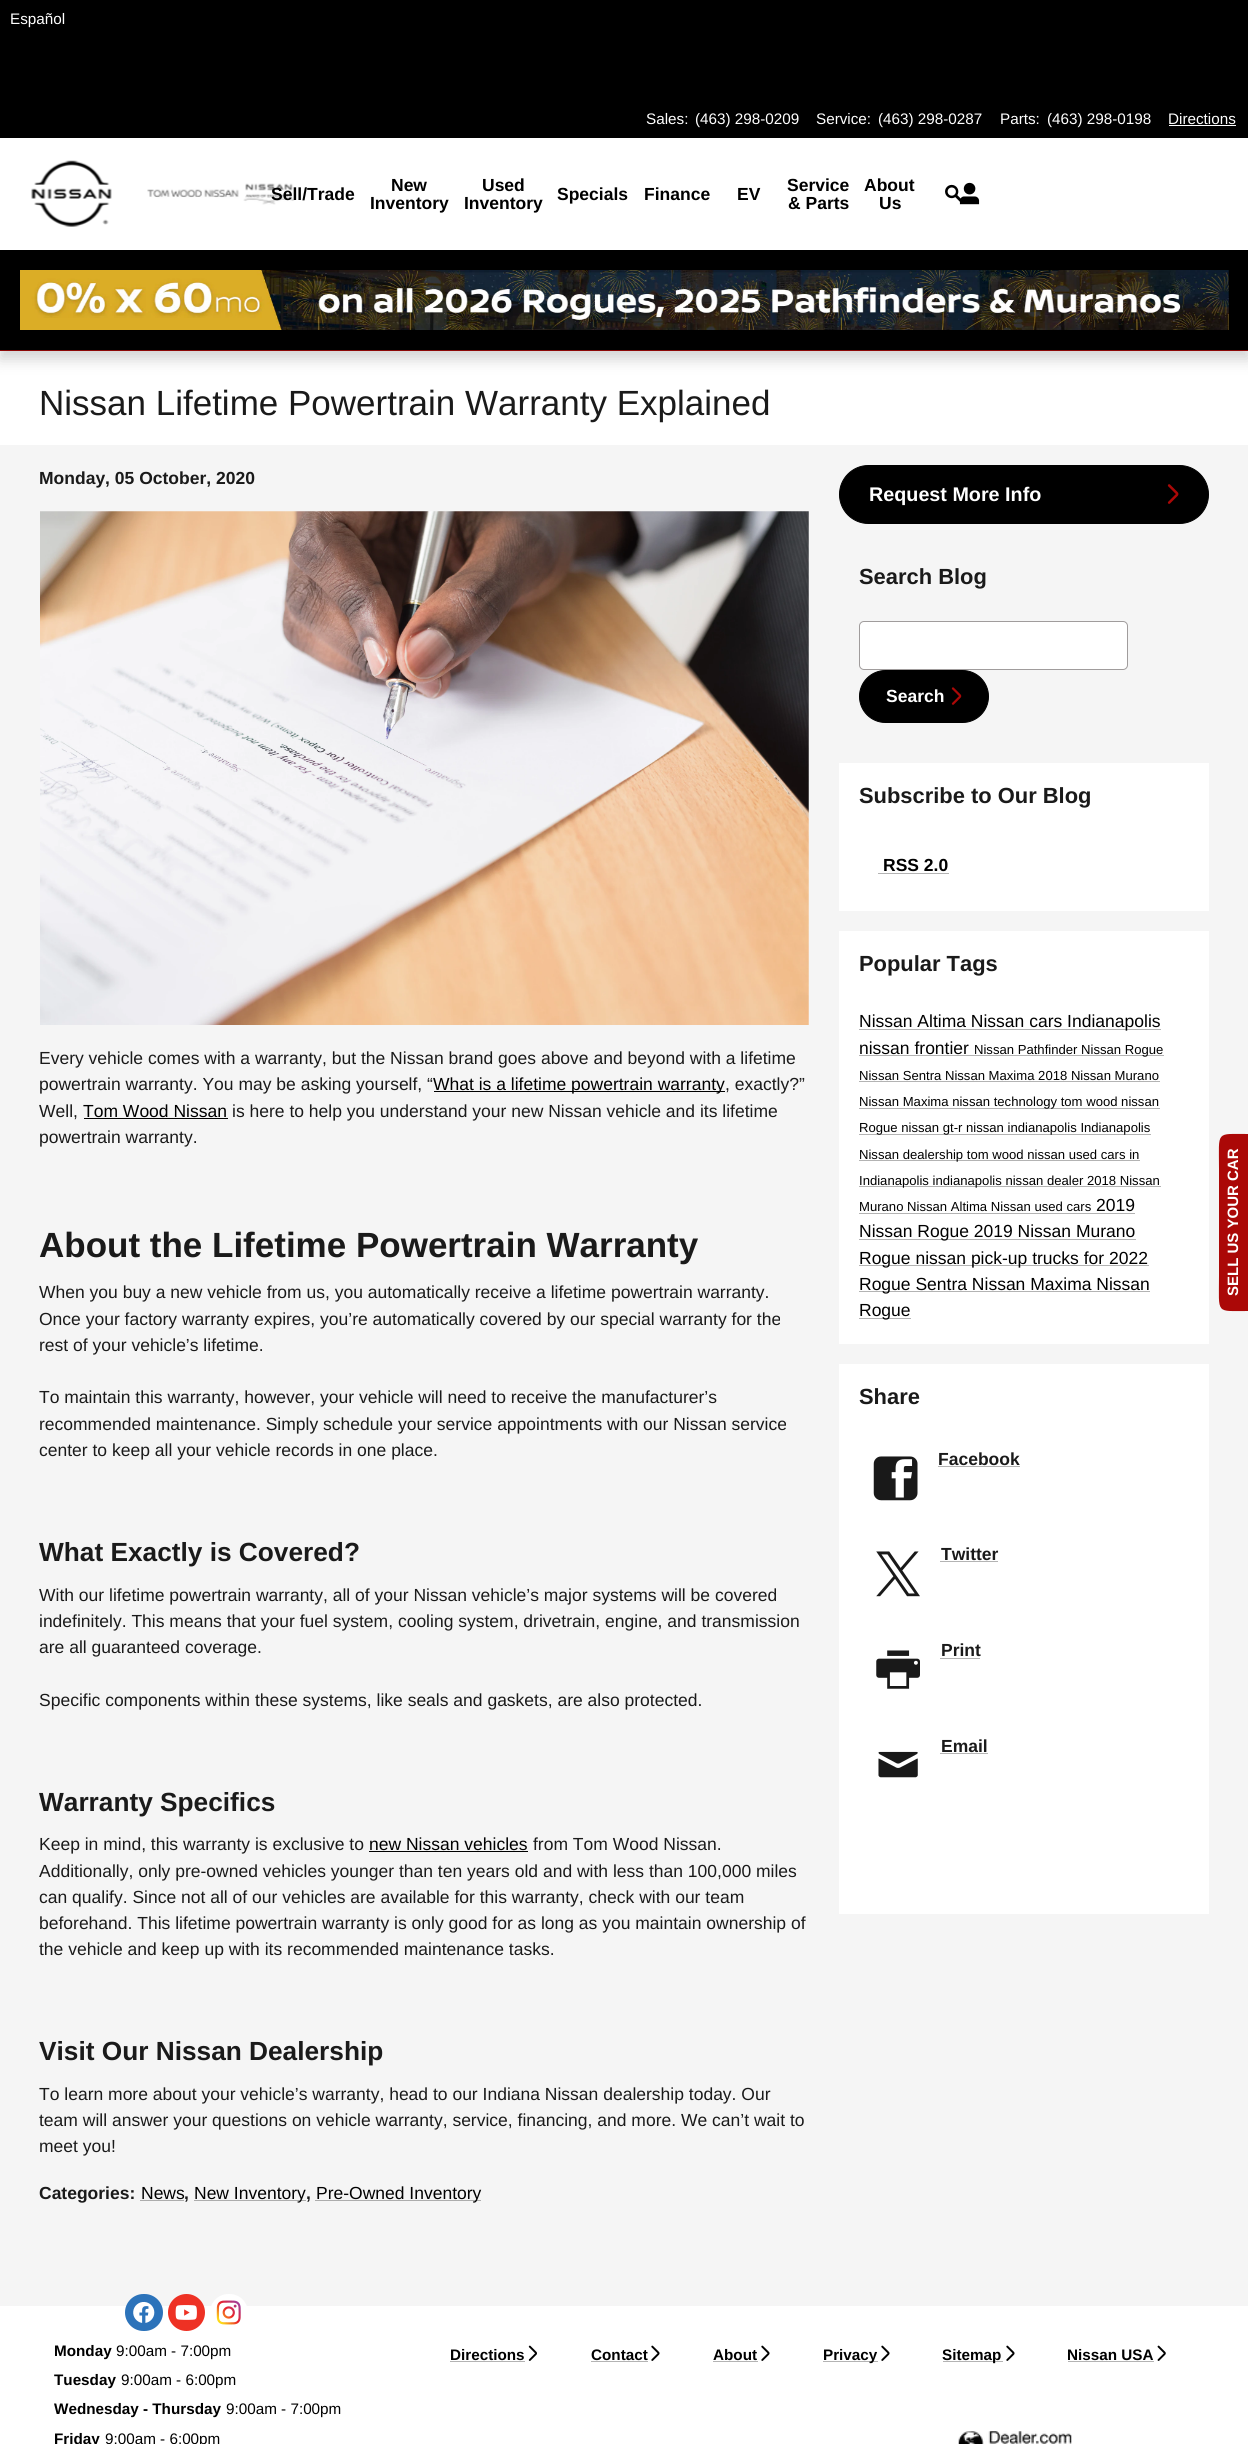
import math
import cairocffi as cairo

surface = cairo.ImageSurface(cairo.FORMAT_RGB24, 1248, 2444)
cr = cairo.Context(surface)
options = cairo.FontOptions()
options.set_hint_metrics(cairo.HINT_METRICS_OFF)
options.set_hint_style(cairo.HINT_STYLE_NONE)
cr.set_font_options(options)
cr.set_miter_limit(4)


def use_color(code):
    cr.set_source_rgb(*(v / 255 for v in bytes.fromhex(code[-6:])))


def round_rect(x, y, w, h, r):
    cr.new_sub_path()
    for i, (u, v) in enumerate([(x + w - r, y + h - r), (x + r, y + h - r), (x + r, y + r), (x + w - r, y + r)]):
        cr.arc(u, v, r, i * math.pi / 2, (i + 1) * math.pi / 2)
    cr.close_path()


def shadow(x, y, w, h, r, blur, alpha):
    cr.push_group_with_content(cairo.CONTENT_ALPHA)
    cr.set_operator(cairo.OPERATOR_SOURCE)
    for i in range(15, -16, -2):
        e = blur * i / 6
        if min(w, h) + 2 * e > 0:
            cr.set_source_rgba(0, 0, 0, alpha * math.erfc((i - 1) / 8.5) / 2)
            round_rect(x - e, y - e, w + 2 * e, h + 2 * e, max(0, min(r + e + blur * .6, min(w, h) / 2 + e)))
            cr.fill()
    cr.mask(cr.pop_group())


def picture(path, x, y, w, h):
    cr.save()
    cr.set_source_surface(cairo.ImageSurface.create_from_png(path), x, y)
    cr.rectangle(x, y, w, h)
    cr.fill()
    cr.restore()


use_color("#f5f5f5")
cr.paint()
use_color("#ffffff")
cr.rectangle(0, 351, 1248, 94)
cr.fill()
use_color("#000000")
shadow(0, 8, 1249, 351, 0, 7.5, 0.18)
use_color("#ffffff")
cr.rectangle(0, 138, 1248, 112)
cr.fill()
use_color("#8c0706")
cr.rectangle(0, 350, 1248, 1)
cr.fill()
use_color("#000000")
cr.rectangle(0, 0, 1248, 138)
cr.fill()
cr.select_font_face("Liberation Sans")
cr.set_font_size(15.25)
use_color("#ffffff")
cr.move_to(10, 24)
cr.show_text("Español")
cr.move_to(646, 124)
cr.show_text("Sales:")
cr.move_to(695, 124)
cr.show_text("(463) 298-0209")
cr.move_to(816, 124)
cr.show_text("Service:")
cr.move_to(878, 124)
cr.show_text("(463) 298-0287")
cr.move_to(1000, 124)
cr.show_text("Parts:")
cr.move_to(1047, 124)
cr.show_text("(463) 298-0198")
cr.move_to(1168, 124)
cr.show_text("Directions")
cr.rectangle(1169, 125, 67, 1)
cr.fill()
picture("img1.png", 31, 160, 81, 67)
picture("img2.png", 147, 183, 148, 22)
cr.select_font_face("Liberation Sans", cairo.FONT_SLANT_NORMAL, cairo.FONT_WEIGHT_BOLD)
cr.set_font_size(17.5)
use_color("#000000")
cr.move_to(271, 200)
cr.show_text("Sell/Trade")
cr.move_to(391, 191)
cr.show_text("New")
cr.move_to(370, 209)
cr.show_text("Inventory")
cr.move_to(482, 191)
cr.show_text("Used")
cr.move_to(464, 209)
cr.show_text("Inventory")
cr.move_to(557, 200)
cr.show_text("Specials")
cr.move_to(644, 200)
cr.show_text("Finance")
cr.move_to(737, 200)
cr.show_text("EV")
cr.move_to(787, 191)
cr.show_text("Service")
cr.move_to(788, 209)
cr.show_text("& Parts")
cr.move_to(864, 191)
cr.show_text("About")
cr.move_to(879, 209)
cr.show_text("Us")
picture("img3.png", 945, 184, 16, 18)
picture("img4.png", 959, 182, 21, 23)
cr.rectangle(0, 250, 1248, 100)
cr.fill()
picture("img5.png", 20, 270, 1209, 60)
cr.select_font_face("Liberation Sans")
cr.set_font_size(35)
use_color("#1a1a1a")
cr.move_to(39, 415)
cr.show_text("Nissan Lifetime Powertrain Warranty Explained")
cr.select_font_face("Liberation Sans", cairo.FONT_SLANT_NORMAL, cairo.FONT_WEIGHT_BOLD)
cr.set_font_size(17.5)
cr.move_to(39, 484)
cr.show_text("Monday, 05 October, 2020")
picture("img6.png", 40, 511, 769, 514)
cr.select_font_face("Liberation Sans")
cr.move_to(39, 1064)
cr.show_text("Every vehicle comes with a warranty, but the Nissan brand goes above and beyond with a lifetime")
cr.move_to(39, 1090)
cr.show_text("powertrain warranty. You may be asking yourself, “")
use_color("#000000")
cr.rectangle(434, 1091, 291, 1)
cr.fill()
cr.move_to(433, 1090)
cr.show_text("What is a lifetime powertrain warranty")
use_color("#1a1a1a")
cr.move_to(725, 1090)
cr.show_text(", exactly?”")
cr.move_to(39, 1117)
cr.show_text("Well,")
use_color("#000000")
cr.move_to(83, 1117)
cr.show_text("Tom Wood Nissan")
cr.rectangle(84, 1118, 144, 1)
cr.fill()
use_color("#1a1a1a")
cr.move_to(232, 1117)
cr.show_text("is here to help you understand your new Nissan vehicle and its lifetime")
cr.move_to(39, 1143)
cr.show_text("powertrain warranty.")
cr.select_font_face("Liberation Sans", cairo.FONT_SLANT_NORMAL, cairo.FONT_WEIGHT_BOLD)
cr.set_font_size(35)
cr.move_to(39, 1257)
cr.show_text("About the Lifetime Powertrain Warranty")
cr.select_font_face("Liberation Sans")
cr.set_font_size(17.5)
cr.move_to(39, 1298)
cr.show_text("When you buy a new vehicle from us, you automatically receive a lifetime powertrain warranty.")
cr.move_to(39, 1325)
cr.show_text("Once your factory warranty expires, you’re automatically covered by our special warranty for the")
cr.move_to(39, 1351)
cr.show_text("rest of your vehicle’s lifetime.")
cr.move_to(39, 1403)
cr.show_text("To maintain this warranty, however, your vehicle will need to receive the manufacturer’s")
cr.move_to(39, 1430)
cr.show_text("recommended maintenance. Simply schedule your service appointments with our Nissan service")
cr.move_to(39, 1456)
cr.show_text("center to keep all your vehicle records in one place.")
cr.select_font_face("Liberation Sans", cairo.FONT_SLANT_NORMAL, cairo.FONT_WEIGHT_BOLD)
cr.set_font_size(26.25)
cr.move_to(39, 1561)
cr.show_text("What Exactly is Covered?")
cr.select_font_face("Liberation Sans")
cr.set_font_size(17.5)
cr.move_to(39, 1601)
cr.show_text("With our lifetime powertrain warranty, all of your Nissan vehicle’s major systems will be covered")
cr.move_to(39, 1627)
cr.show_text("indefinitely. This means that your fuel system, cooling system, drivetrain, engine, and transmission")
cr.move_to(39, 1653)
cr.show_text("are all guaranteed coverage.")
cr.move_to(39, 1706)
cr.show_text("Specific components within these systems, like seals and gaskets, are also protected.")
cr.select_font_face("Liberation Sans", cairo.FONT_SLANT_NORMAL, cairo.FONT_WEIGHT_BOLD)
cr.set_font_size(26.25)
cr.move_to(39, 1811)
cr.show_text("Warranty Specifics")
cr.select_font_face("Liberation Sans")
cr.set_font_size(17.5)
cr.move_to(39, 1850)
cr.show_text("Keep in mind, this warranty is exclusive to")
use_color("#000000")
cr.move_to(369, 1850)
cr.show_text("new Nissan vehicles")
cr.rectangle(369, 1851, 159, 1)
cr.fill()
use_color("#1a1a1a")
cr.move_to(533, 1850)
cr.show_text("from Tom Wood Nissan.")
cr.move_to(39, 1877)
cr.show_text("Additionally, only pre-owned vehicles younger than ten years old and with less than 100,000 miles")
cr.move_to(39, 1903)
cr.show_text("can qualify. Since not all of our vehicles are available for this warranty, check with our team")
cr.move_to(39, 1929)
cr.show_text("beforehand. This lifetime powertrain warranty is only good for as long as you maintain ownership of")
cr.move_to(39, 1955)
cr.show_text("the vehicle and keep up with its recommended maintenance tasks.")
cr.select_font_face("Liberation Sans", cairo.FONT_SLANT_NORMAL, cairo.FONT_WEIGHT_BOLD)
cr.set_font_size(26.25)
cr.move_to(39, 2060)
cr.show_text("Visit Our Nissan Dealership")
cr.select_font_face("Liberation Sans")
cr.set_font_size(17.5)
cr.move_to(39, 2100)
cr.show_text("To learn more about your vehicle’s warranty, head to our Indiana Nissan dealership today. Our")
cr.move_to(39, 2126)
cr.show_text("team will answer your questions on vehicle warranty, service, financing, and more. We can’t wait to")
cr.move_to(39, 2152)
cr.show_text("meet you!")
cr.select_font_face("Liberation Sans", cairo.FONT_SLANT_NORMAL, cairo.FONT_WEIGHT_BOLD)
cr.move_to(39, 2199)
cr.show_text("Categories:")
cr.select_font_face("Liberation Sans")
use_color("#000000")
cr.move_to(141, 2199)
cr.show_text("News")
use_color("#acacac")
cr.rectangle(140, 2200, 44, 1)
cr.fill()
cr.select_font_face("Liberation Sans", cairo.FONT_SLANT_NORMAL, cairo.FONT_WEIGHT_BOLD)
use_color("#1a1a1a")
cr.move_to(184, 2199)
cr.show_text(",")
use_color("#acacac")
cr.rectangle(194, 2200, 112, 1)
cr.fill()
cr.select_font_face("Liberation Sans")
use_color("#000000")
cr.move_to(194, 2199)
cr.show_text("New Inventory")
cr.select_font_face("Liberation Sans", cairo.FONT_SLANT_NORMAL, cairo.FONT_WEIGHT_BOLD)
use_color("#1a1a1a")
cr.move_to(306, 2199)
cr.show_text(",")
use_color("#acacac")
cr.rectangle(315, 2200, 166, 1)
cr.fill()
cr.select_font_face("Liberation Sans")
use_color("#000000")
cr.move_to(316, 2199)
cr.show_text("Pre-Owned Inventory")
round_rect(839.5, 465.5, 369, 58, 29)
cr.fill_preserve()
cr.set_line_width(1)
cr.stroke()
cr.select_font_face("Liberation Sans", cairo.FONT_SLANT_NORMAL, cairo.FONT_WEIGHT_BOLD)
cr.set_font_size(19.75)
use_color("#ffffff")
cr.move_to(869, 501)
cr.show_text("Request More Info")
picture("img7.png", 1167, 484, 12, 20)
cr.set_font_size(21.9)
use_color("#1a1a1a")
cr.move_to(859, 584)
cr.show_text("Search Blog")
use_color("#ffffff")
round_rect(859.5, 621.5, 268, 48, 4.5)
cr.fill_preserve()
use_color("#a09c9c")
cr.stroke()
use_color("#000000")
round_rect(859.5, 670.5, 129, 52, 26)
cr.fill_preserve()
cr.stroke()
cr.set_font_size(17.5)
use_color("#ffffff")
cr.move_to(886, 702)
cr.show_text("Search")
picture("img8.png", 951, 687, 11, 18)
cr.rectangle(839, 763, 370, 148)
cr.fill()
cr.set_font_size(21.9)
use_color("#1a1a1a")
cr.move_to(859, 803)
cr.show_text("Subscribe to Our Blog")
cr.set_font_size(17.5)
use_color("#000000")
cr.move_to(883, 871)
cr.show_text("RSS 2.0")
use_color("#b3b3b3")
cr.rectangle(878, 873, 71, 1)
cr.fill()
use_color("#ffffff")
cr.rectangle(839, 931, 370, 413)
cr.fill()
cr.set_font_size(21.9)
use_color("#1a1a1a")
cr.move_to(859, 971)
cr.show_text("Popular Tags")
use_color("#b3b3b3")
cr.rectangle(859, 1029, 302, 1)
cr.fill()
cr.select_font_face("Liberation Sans")
cr.set_font_size(17.5)
use_color("#000000")
cr.move_to(859, 1027)
cr.show_text("Nissan Altima Nissan cars Indianapolis")
cr.move_to(859, 1054)
cr.show_text("nissan frontier")
use_color("#b3b3b3")
cr.rectangle(859, 1055, 305, 1)
cr.fill()
cr.set_font_size(13.1)
use_color("#000000")
cr.move_to(974, 1054)
cr.show_text("Nissan Pathfinder Nissan Rogue")
cr.move_to(859, 1080)
cr.show_text("Nissan Sentra Nissan Maxima 2018 Nissan Murano")
use_color("#b3b3b3")
cr.rectangle(859, 1081, 301, 1)
cr.fill()
cr.rectangle(859, 1108, 301, 1)
cr.fill()
use_color("#000000")
cr.move_to(859, 1106)
cr.show_text("Nissan Maxima nissan technology tom wood nissan")
use_color("#b3b3b3")
cr.rectangle(859, 1134, 292, 1)
cr.fill()
use_color("#000000")
cr.move_to(859, 1132)
cr.show_text("Rogue nissan gt-r nissan indianapolis Indianapolis")
use_color("#b3b3b3")
cr.rectangle(859, 1160, 281, 1)
cr.fill()
use_color("#000000")
cr.move_to(859, 1159)
cr.show_text("Nissan dealership tom wood nissan used cars in")
use_color("#b3b3b3")
cr.rectangle(859, 1186, 302, 1)
cr.fill()
use_color("#000000")
cr.move_to(859, 1185)
cr.show_text("Indianapolis indianapolis nissan dealer 2018 Nissan")
cr.move_to(859, 1211)
cr.show_text("Murano Nissan Altima Nissan used cars")
use_color("#b3b3b3")
cr.rectangle(859, 1213, 276, 1)
cr.fill()
cr.set_font_size(17.5)
use_color("#000000")
cr.move_to(1096, 1211)
cr.show_text("2019")
use_color("#b3b3b3")
cr.rectangle(859, 1239, 277, 1)
cr.fill()
use_color("#000000")
cr.move_to(859, 1237)
cr.show_text("Nissan Rogue 2019 Nissan Murano")
use_color("#b3b3b3")
cr.rectangle(859, 1265, 290, 1)
cr.fill()
use_color("#000000")
cr.move_to(859, 1264)
cr.show_text("Rogue nissan pick-up trucks for 2022")
use_color("#b3b3b3")
cr.rectangle(859, 1291, 291, 1)
cr.fill()
use_color("#000000")
cr.move_to(859, 1290)
cr.show_text("Rogue Sentra Nissan Maxima Nissan")
use_color("#b3b3b3")
cr.rectangle(859, 1318, 52, 1)
cr.fill()
use_color("#000000")
cr.move_to(859, 1316)
cr.show_text("Rogue")
use_color("#ffffff")
cr.rectangle(839, 1364, 370, 550)
cr.fill()
cr.select_font_face("Liberation Sans", cairo.FONT_SLANT_NORMAL, cairo.FONT_WEIGHT_BOLD)
cr.set_font_size(21.9)
use_color("#1a1a1a")
cr.move_to(859, 1404)
cr.show_text("Share")
picture("img9.png", 873, 1456, 45, 45)
cr.set_font_size(17.5)
cr.move_to(938, 1465)
cr.show_text("Facebook")
use_color("#b3b3b3")
cr.rectangle(938, 1466, 82, 1)
cr.fill()
picture("img10.png", 876, 1551, 44, 46)
use_color("#1a1a1a")
cr.move_to(941, 1560)
cr.show_text("Twitter")
use_color("#b3b3b3")
cr.rectangle(940, 1561, 58, 1)
cr.fill()
picture("img11.png", 876, 1650, 44, 39)
use_color("#1a1a1a")
cr.move_to(941, 1656)
cr.show_text("Print")
use_color("#b3b3b3")
cr.rectangle(940, 1658, 40, 1)
cr.fill()
use_color("#1a1a1a")
cr.move_to(941, 1752)
cr.show_text("Email")
use_color("#b3b3b3")
cr.rectangle(940, 1753, 48, 1)
cr.fill()
picture("img12.png", 878, 1751, 40, 27)
use_color("#ab0807")
cr.new_path()
cr.move_to(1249, 1311)
cr.curve_to(1215, 1311, 1219, 1315, 1219, 1276)
cr.line_to(1219, 1169)
cr.curve_to(1219, 1130, 1215, 1134, 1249, 1134)
cr.close_path()
cr.fill()
cr.set_font_size(15)
use_color("#ffffff")
cr.save()
cr.translate(1238, 1296)
cr.rotate(-90 * math.pi / 180)
cr.move_to(0, 0)
cr.show_text("SELL US YOUR CAR")
cr.restore()
cr.rectangle(0, 2306, 1248, 138)
cr.fill()
picture("img13.png", 125, 2294, 38, 37)
picture("img14.png", 168, 2294, 37, 37)
picture("img15.png", 211, 2294, 36, 31)
cr.set_font_size(15.25)
use_color("#000000")
cr.move_to(54, 2356)
cr.show_text("Monday")
cr.select_font_face("Liberation Sans")
cr.move_to(116, 2356)
cr.show_text("9:00am - 7:00pm")
cr.select_font_face("Liberation Sans", cairo.FONT_SLANT_NORMAL, cairo.FONT_WEIGHT_BOLD)
cr.move_to(54, 2385)
cr.show_text("Tuesday")
cr.select_font_face("Liberation Sans")
cr.move_to(121, 2385)
cr.show_text("9:00am - 6:00pm")
cr.select_font_face("Liberation Sans", cairo.FONT_SLANT_NORMAL, cairo.FONT_WEIGHT_BOLD)
cr.move_to(54, 2414)
cr.show_text("Wednesday - Thursday")
cr.select_font_face("Liberation Sans")
cr.move_to(226, 2414)
cr.show_text("9:00am - 7:00pm")
cr.select_font_face("Liberation Sans", cairo.FONT_SLANT_NORMAL, cairo.FONT_WEIGHT_BOLD)
cr.move_to(54, 2444)
cr.show_text("Friday")
cr.select_font_face("Liberation Sans")
cr.move_to(105, 2444)
cr.show_text("9:00am - 6:00pm")
cr.select_font_face("Liberation Sans", cairo.FONT_SLANT_NORMAL, cairo.FONT_WEIGHT_BOLD)
cr.move_to(450, 2360)
cr.show_text("Directions")
use_color("#b3b3b3")
cr.rectangle(450, 2361, 75, 1)
cr.fill()
picture("img16.png", 528, 2345, 9, 16)
use_color("#000000")
cr.move_to(591, 2360)
cr.show_text("Contact")
use_color("#b3b3b3")
cr.rectangle(591, 2361, 57, 1)
cr.fill()
picture("img17.png", 651, 2345, 9, 16)
use_color("#000000")
cr.move_to(713, 2360)
cr.show_text("About")
use_color("#b3b3b3")
cr.rectangle(713, 2361, 45, 1)
cr.fill()
picture("img17.png", 761, 2345, 9, 16)
cr.rectangle(823, 2361, 55, 1)
cr.fill()
use_color("#000000")
cr.move_to(823, 2360)
cr.show_text("Privacy")
picture("img17.png", 881, 2345, 9, 16)
use_color("#b3b3b3")
cr.rectangle(943, 2361, 60, 1)
cr.fill()
use_color("#000000")
cr.move_to(942, 2360)
cr.show_text("Sitemap")
picture("img17.png", 1006, 2345, 9, 16)
cr.move_to(1067, 2360)
cr.show_text("Nissan USA")
use_color("#b3b3b3")
cr.rectangle(1068, 2361, 86, 1)
cr.fill()
picture("img18.png", 1157, 2345, 9, 16)
picture("img19.png", 958, 2431, 114, 13)
surface.write_to_png("result.png")
